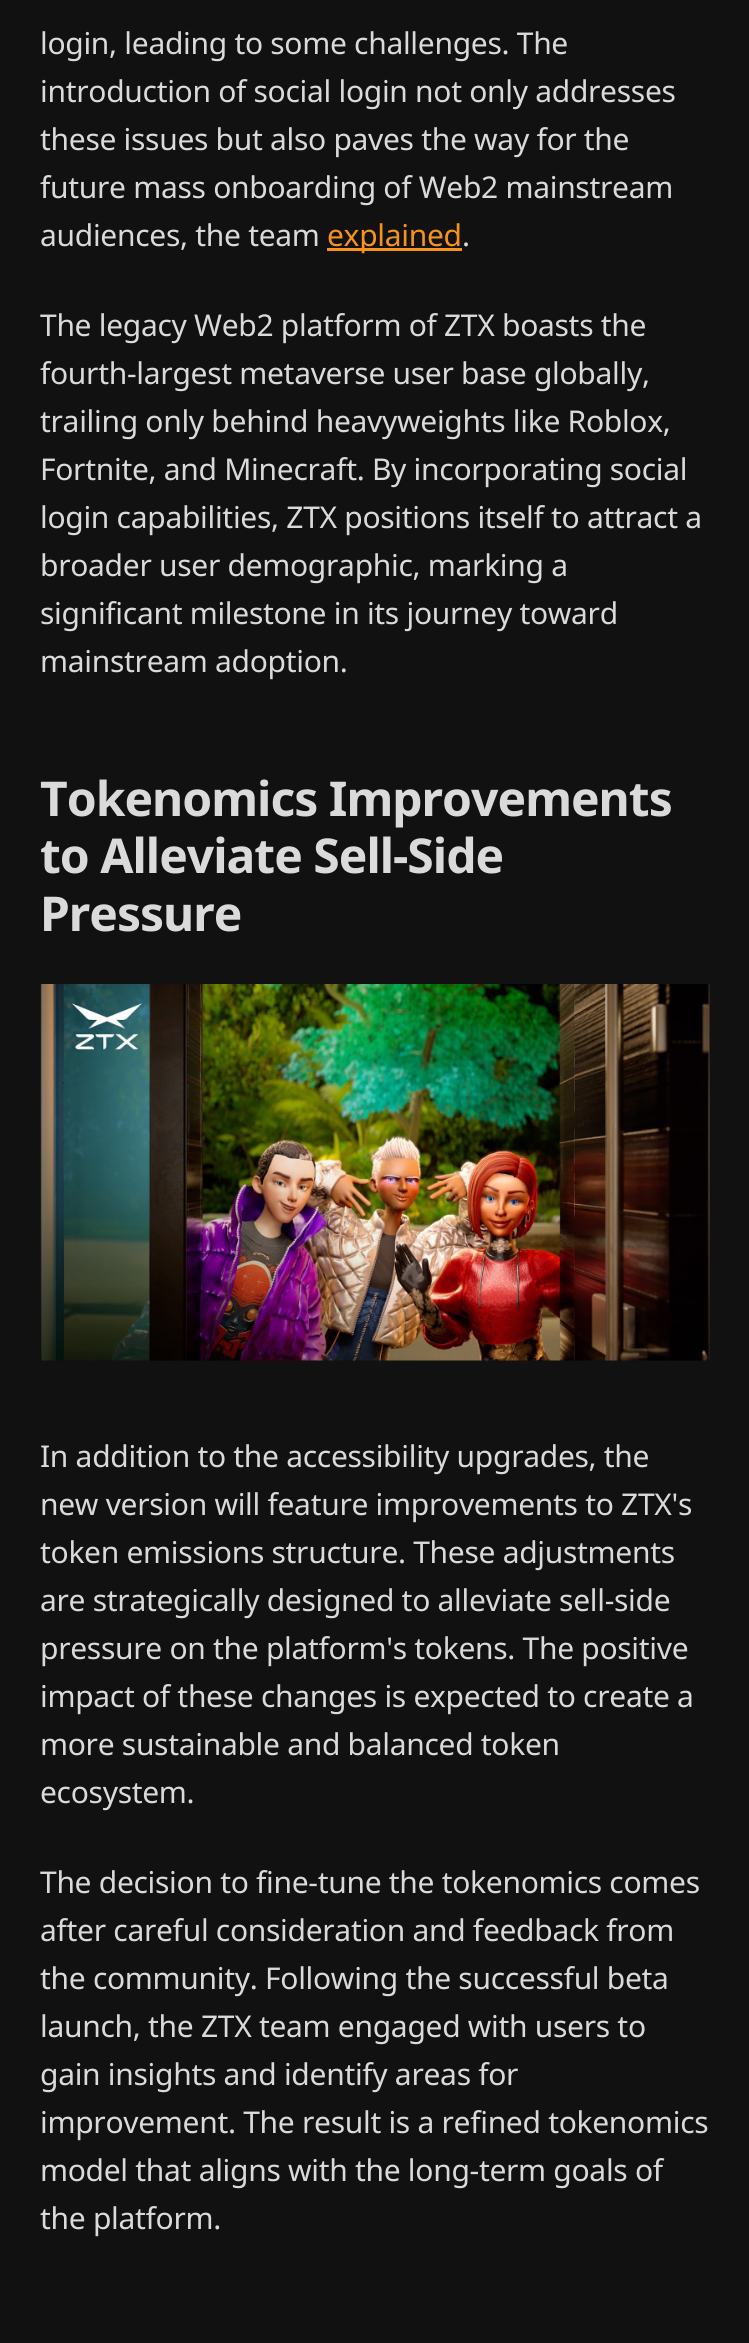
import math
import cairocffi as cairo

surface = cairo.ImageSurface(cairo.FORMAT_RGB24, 749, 2343)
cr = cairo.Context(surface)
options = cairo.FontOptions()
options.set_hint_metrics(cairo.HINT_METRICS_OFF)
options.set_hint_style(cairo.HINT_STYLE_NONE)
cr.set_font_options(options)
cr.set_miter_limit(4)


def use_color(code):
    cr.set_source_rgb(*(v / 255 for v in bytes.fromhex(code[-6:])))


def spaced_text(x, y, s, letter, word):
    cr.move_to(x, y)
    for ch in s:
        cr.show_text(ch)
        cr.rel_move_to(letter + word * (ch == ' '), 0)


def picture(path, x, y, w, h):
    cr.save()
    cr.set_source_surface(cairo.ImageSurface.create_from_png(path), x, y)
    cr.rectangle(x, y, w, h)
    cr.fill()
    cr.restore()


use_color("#111111")
cr.paint()
cr.select_font_face("Noto Sans")
cr.set_font_size(30)
use_color("#dadada")
spaced_text(40, 54, "login, leading to some challenges. The", -0.3, 0)
spaced_text(40, 102, "introduction of social login not only addresses", -0.3, 0)
spaced_text(40, 150, "these issues but also paves the way for the", -0.3, 0)
spaced_text(40, 198, "future mass onboarding of Web2 mainstream", -0.3, 0)
spaced_text(40, 246, "audiences, the team", -0.3, 0)
use_color("#f7931a")
cr.rectangle(327, 248, 135, 3)
cr.fill()
spaced_text(327, 246, "explained", -0.3, 0)
use_color("#dadada")
spaced_text(462, 246, ".", -0.3, 0)
spaced_text(40, 336, "The legacy Web2 platform of ZTX boasts the", -0.3, 0)
spaced_text(40, 384, "fourth-largest metaverse user base globally,", -0.3, 0)
spaced_text(40, 432, "trailing only behind heavyweights like Roblox,", -0.3, 0)
spaced_text(40, 480, "Fortnite, and Minecraft. By incorporating social", -0.3, 0)
spaced_text(40, 528, "login capabilities, ZTX positions itself to attract a", -0.3, 0)
spaced_text(40, 576, "broader user demographic, marking a", -0.3, 0)
spaced_text(40, 624, "significant milestone in its journey toward", -0.3, 0)
spaced_text(40, 672, "mainstream adoption.", -0.3, 0)
cr.select_font_face("Noto Sans", cairo.FONT_SLANT_NORMAL, cairo.FONT_WEIGHT_BOLD)
cr.set_font_size(48)
spaced_text(40, 816, "Tokenomics Improvements", -1, 0)
spaced_text(40, 873, "to Alleviate Sell-Side", -1, 0)
spaced_text(40, 931, "Pressure", -1, 0)
picture("img1.png", 40, 984, 670, 377)
cr.select_font_face("Noto Sans")
cr.set_font_size(30)
spaced_text(40, 1467, "In addition to the accessibility upgrades, the", -0.3, 0)
spaced_text(40, 1515, "new version will feature improvements to ZTX's", -0.3, 0)
spaced_text(40, 1563, "token emissions structure. These adjustments", -0.3, 0)
spaced_text(40, 1611, "are strategically designed to alleviate sell-side", -0.3, 0)
spaced_text(40, 1659, "pressure on the platform's tokens. The positive", -0.3, 0)
spaced_text(40, 1707, "impact of these changes is expected to create a", -0.3, 0)
spaced_text(40, 1755, "more sustainable and balanced token", -0.3, 0)
spaced_text(40, 1803, "ecosystem.", -0.3, 0)
spaced_text(40, 1893, "The decision to fine-tune the tokenomics comes", -0.3, 0)
spaced_text(40, 1941, "after careful consideration and feedback from", -0.3, 0)
spaced_text(40, 1989, "the community. Following the successful beta", -0.3, 0)
spaced_text(40, 2037, "launch, the ZTX team engaged with users to", -0.3, 0)
spaced_text(40, 2085, "gain insights and identify areas for", -0.3, 0)
spaced_text(40, 2133, "improvement. The result is a refined tokenomics", -0.3, 0)
spaced_text(40, 2181, "model that aligns with the long-term goals of", -0.3, 0)
spaced_text(40, 2229, "the platform.", -0.3, 0)
surface.write_to_png("result.png")
